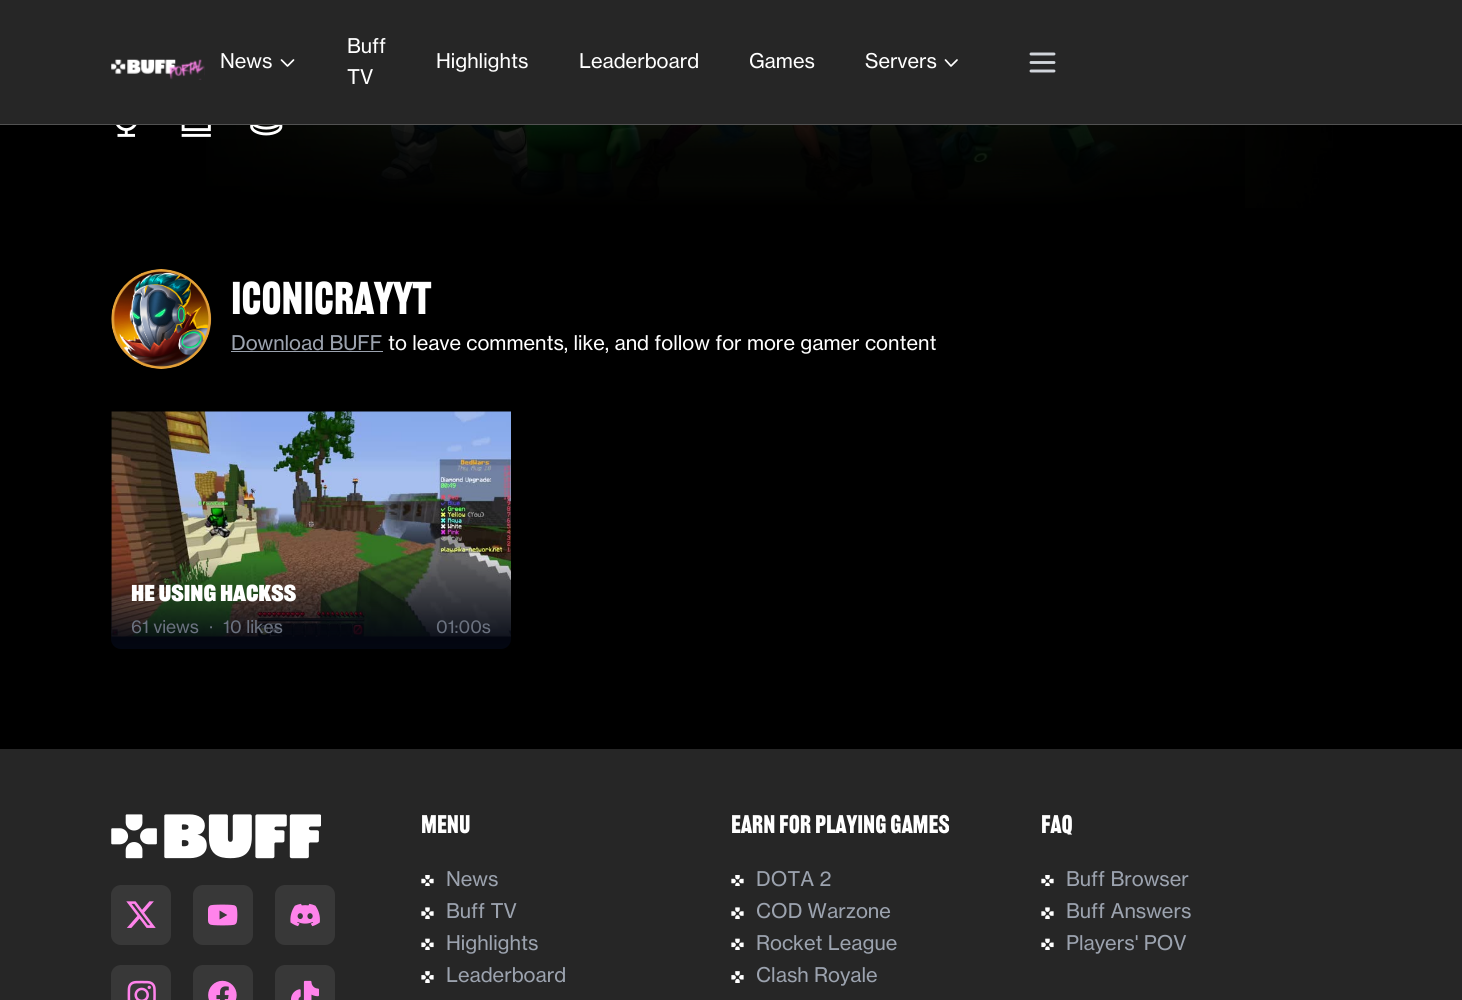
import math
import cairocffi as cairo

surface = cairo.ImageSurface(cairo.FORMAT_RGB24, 1462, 1000)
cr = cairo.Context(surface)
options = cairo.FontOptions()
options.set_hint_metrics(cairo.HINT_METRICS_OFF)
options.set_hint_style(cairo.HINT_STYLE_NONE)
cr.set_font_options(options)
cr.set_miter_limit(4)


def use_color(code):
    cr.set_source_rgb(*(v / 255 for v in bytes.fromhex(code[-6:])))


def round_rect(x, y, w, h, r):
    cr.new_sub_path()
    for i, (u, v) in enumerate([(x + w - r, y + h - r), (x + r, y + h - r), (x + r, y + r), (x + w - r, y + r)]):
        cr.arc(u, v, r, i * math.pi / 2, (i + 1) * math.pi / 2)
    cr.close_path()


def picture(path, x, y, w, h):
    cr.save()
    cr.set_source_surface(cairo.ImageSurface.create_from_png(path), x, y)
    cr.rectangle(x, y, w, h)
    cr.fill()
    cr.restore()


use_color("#000000")
cr.paint()
use_color("#262626")
cr.rectangle(0, 0, 1462, 124)
cr.fill()
use_color("#525252")
cr.rectangle(0, 124, 1462, 1)
cr.fill()
picture("img1.png", 111, 59, 94, 21)
cr.select_font_face("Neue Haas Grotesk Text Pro")
cr.set_font_size(20)
use_color("#ffffff")
cr.move_to(220, 68)
cr.show_text("News")
cr.new_path()
cr.move_to(293.5, 60)
cr.line_to(287.5, 66)
cr.line_to(281.5, 60)
cr.set_line_width(1.7)
cr.set_line_cap(cairo.LINE_CAP_ROUND)
cr.set_line_join(cairo.LINE_JOIN_ROUND)
cr.stroke()
cr.move_to(347, 53)
cr.show_text("Buff")
cr.move_to(347, 84)
cr.show_text("TV")
cr.move_to(436, 68)
cr.show_text("Highlights")
cr.move_to(579, 68)
cr.show_text("Leaderboard")
cr.move_to(749, 68)
cr.show_text("Games")
cr.move_to(865, 68)
cr.show_text("Servers")
cr.new_path()
cr.move_to(957, 60)
cr.line_to(951, 66)
cr.line_to(945.5, 60)
cr.stroke()
cr.new_path()
cr.move_to(1031, 54)
cr.line_to(1054, 54)
cr.move_to(1031, 62.5)
cr.line_to(1054, 62.5)
cr.move_to(1031, 71)
cr.line_to(1054, 71)
use_color("#d1d5db")
cr.set_line_width(2.9)
cr.stroke()
picture("img2.png", 116, 125, 21, 12)
picture("img5.png", 206, 125, 1127, 83)
gradient = cairo.LinearGradient(731, 209, 731, -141)
gradient.add_color_stop_rgba(0, 0, 0, 0, 1)
gradient.add_color_stop_rgba(0.4, 0, 0, 0, 0)
cr.set_source(gradient)
cr.rectangle(206, 125, 1039, 83)
cr.fill()
picture("img3.png", 181, 125, 30, 12)
picture("img4.png", 250, 125, 33, 11)
picture("img6.png", 111, 269, 101, 100)
cr.select_font_face("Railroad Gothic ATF")
cr.set_font_size(45)
use_color("#ffffff")
cr.move_to(231, 314)
cr.show_text("IconicRayYT")
cr.select_font_face("Neue Haas Grotesk Text Pro")
cr.set_font_size(20)
use_color("#9ca3af")
cr.move_to(231, 350)
cr.show_text("Download BUFF")
cr.rectangle(231, 351, 152, 1)
cr.fill()
use_color("#ffffff")
cr.move_to(388, 350)
cr.show_text("to leave comments, like, and follow for more gamer content")
picture("img7.png", 111, 411, 400, 226)
gradient = cairo.LinearGradient(311, 649, 311, 559)
gradient.add_color_stop_rgba(0, 0.012, 0.027, 0.071, 1)
gradient.add_color_stop_rgba(1, 0.012, 0.027, 0.071, 0)
cr.set_source(gradient)
cr.new_path()
cr.move_to(111, 559)
cr.line_to(511, 559)
cr.line_to(511, 639)
cr.curve_to(511, 644.5, 506.5, 649, 501, 649)
cr.line_to(121, 649)
cr.curve_to(115.5, 649, 111, 644.5, 111, 639)
cr.close_path()
cr.fill()
cr.select_font_face("Railroad Gothic ATF", cairo.FONT_SLANT_NORMAL, cairo.FONT_WEIGHT_BOLD)
cr.set_font_size(22.5)
use_color("#ffffff")
cr.move_to(131, 601)
cr.show_text("he using hackss")
cr.select_font_face("Neue Haas Grotesk Text Pro")
cr.set_font_size(17.5)
use_color("#6b7280")
cr.move_to(131, 633)
cr.show_text("61 views")
cr.move_to(209, 633)
cr.show_text("·")
cr.move_to(223, 633)
cr.show_text("10 likes")
cr.move_to(436, 633)
cr.show_text("01:00s")
use_color("#262626")
cr.rectangle(0, 749, 1462, 251)
cr.fill()
picture("img8.png", 111, 814, 210, 45)
use_color("#383838")
round_rect(111, 885, 60, 60, 10)
cr.fill()
picture("img9.png", 126, 901, 30, 27)
round_rect(193, 885, 60, 60, 10)
cr.fill()
picture("img10.png", 208, 904, 30, 22)
round_rect(275, 885, 60, 60, 10)
cr.fill()
picture("img11.png", 290, 903, 30, 24)
round_rect(111, 965, 60, 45, 10)
cr.fill()
picture("img12.png", 127, 980, 29, 20)
round_rect(193, 965, 60, 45, 10)
cr.fill()
picture("img13.png", 208, 980, 29, 20)
round_rect(275, 965, 60, 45, 10)
cr.fill()
picture("img14.png", 291, 980, 28, 20)
cr.select_font_face("Railroad Gothic ATF")
cr.set_font_size(25)
use_color("#ffffff")
cr.move_to(421, 833)
cr.show_text("Menu")
picture("img15.png", 421, 875, 13, 11)
cr.select_font_face("Neue Haas Grotesk Text Pro")
cr.set_font_size(20)
use_color("#9ca3af")
cr.move_to(446, 886)
cr.show_text("News")
picture("img16.png", 421, 907, 13, 12)
cr.move_to(446, 918)
cr.show_text("Buff TV")
picture("img17.png", 421, 938, 13, 12)
cr.move_to(446, 950)
cr.show_text("Highlights")
picture("img18.png", 421, 971, 13, 12)
cr.move_to(446, 982)
cr.show_text("Leaderboard")
cr.select_font_face("Railroad Gothic ATF")
cr.set_font_size(25)
use_color("#ffffff")
cr.move_to(731, 833)
cr.show_text("Earn For Playing Games")
picture("img15.png", 731, 875, 13, 11)
cr.select_font_face("Neue Haas Grotesk Text Pro")
cr.set_font_size(20)
use_color("#9ca3af")
cr.move_to(756, 886)
cr.show_text("DOTA 2")
picture("img16.png", 731, 907, 13, 12)
cr.move_to(756, 918)
cr.show_text("COD Warzone")
picture("img17.png", 731, 938, 13, 12)
cr.move_to(756, 950)
cr.show_text("Rocket League")
picture("img18.png", 731, 971, 13, 12)
cr.move_to(756, 982)
cr.show_text("Clash Royale")
cr.select_font_face("Railroad Gothic ATF")
cr.set_font_size(25)
use_color("#ffffff")
cr.move_to(1041, 833)
cr.show_text("FAQ")
picture("img15.png", 1041, 875, 13, 11)
cr.select_font_face("Neue Haas Grotesk Text Pro")
cr.set_font_size(20)
use_color("#9ca3af")
cr.move_to(1066, 886)
cr.show_text("Buff Browser")
picture("img16.png", 1041, 907, 13, 12)
cr.move_to(1066, 918)
cr.show_text("Buff Answers")
picture("img17.png", 1041, 938, 13, 12)
cr.move_to(1066, 950)
cr.show_text("Players' POV")
surface.write_to_png("result.png")
